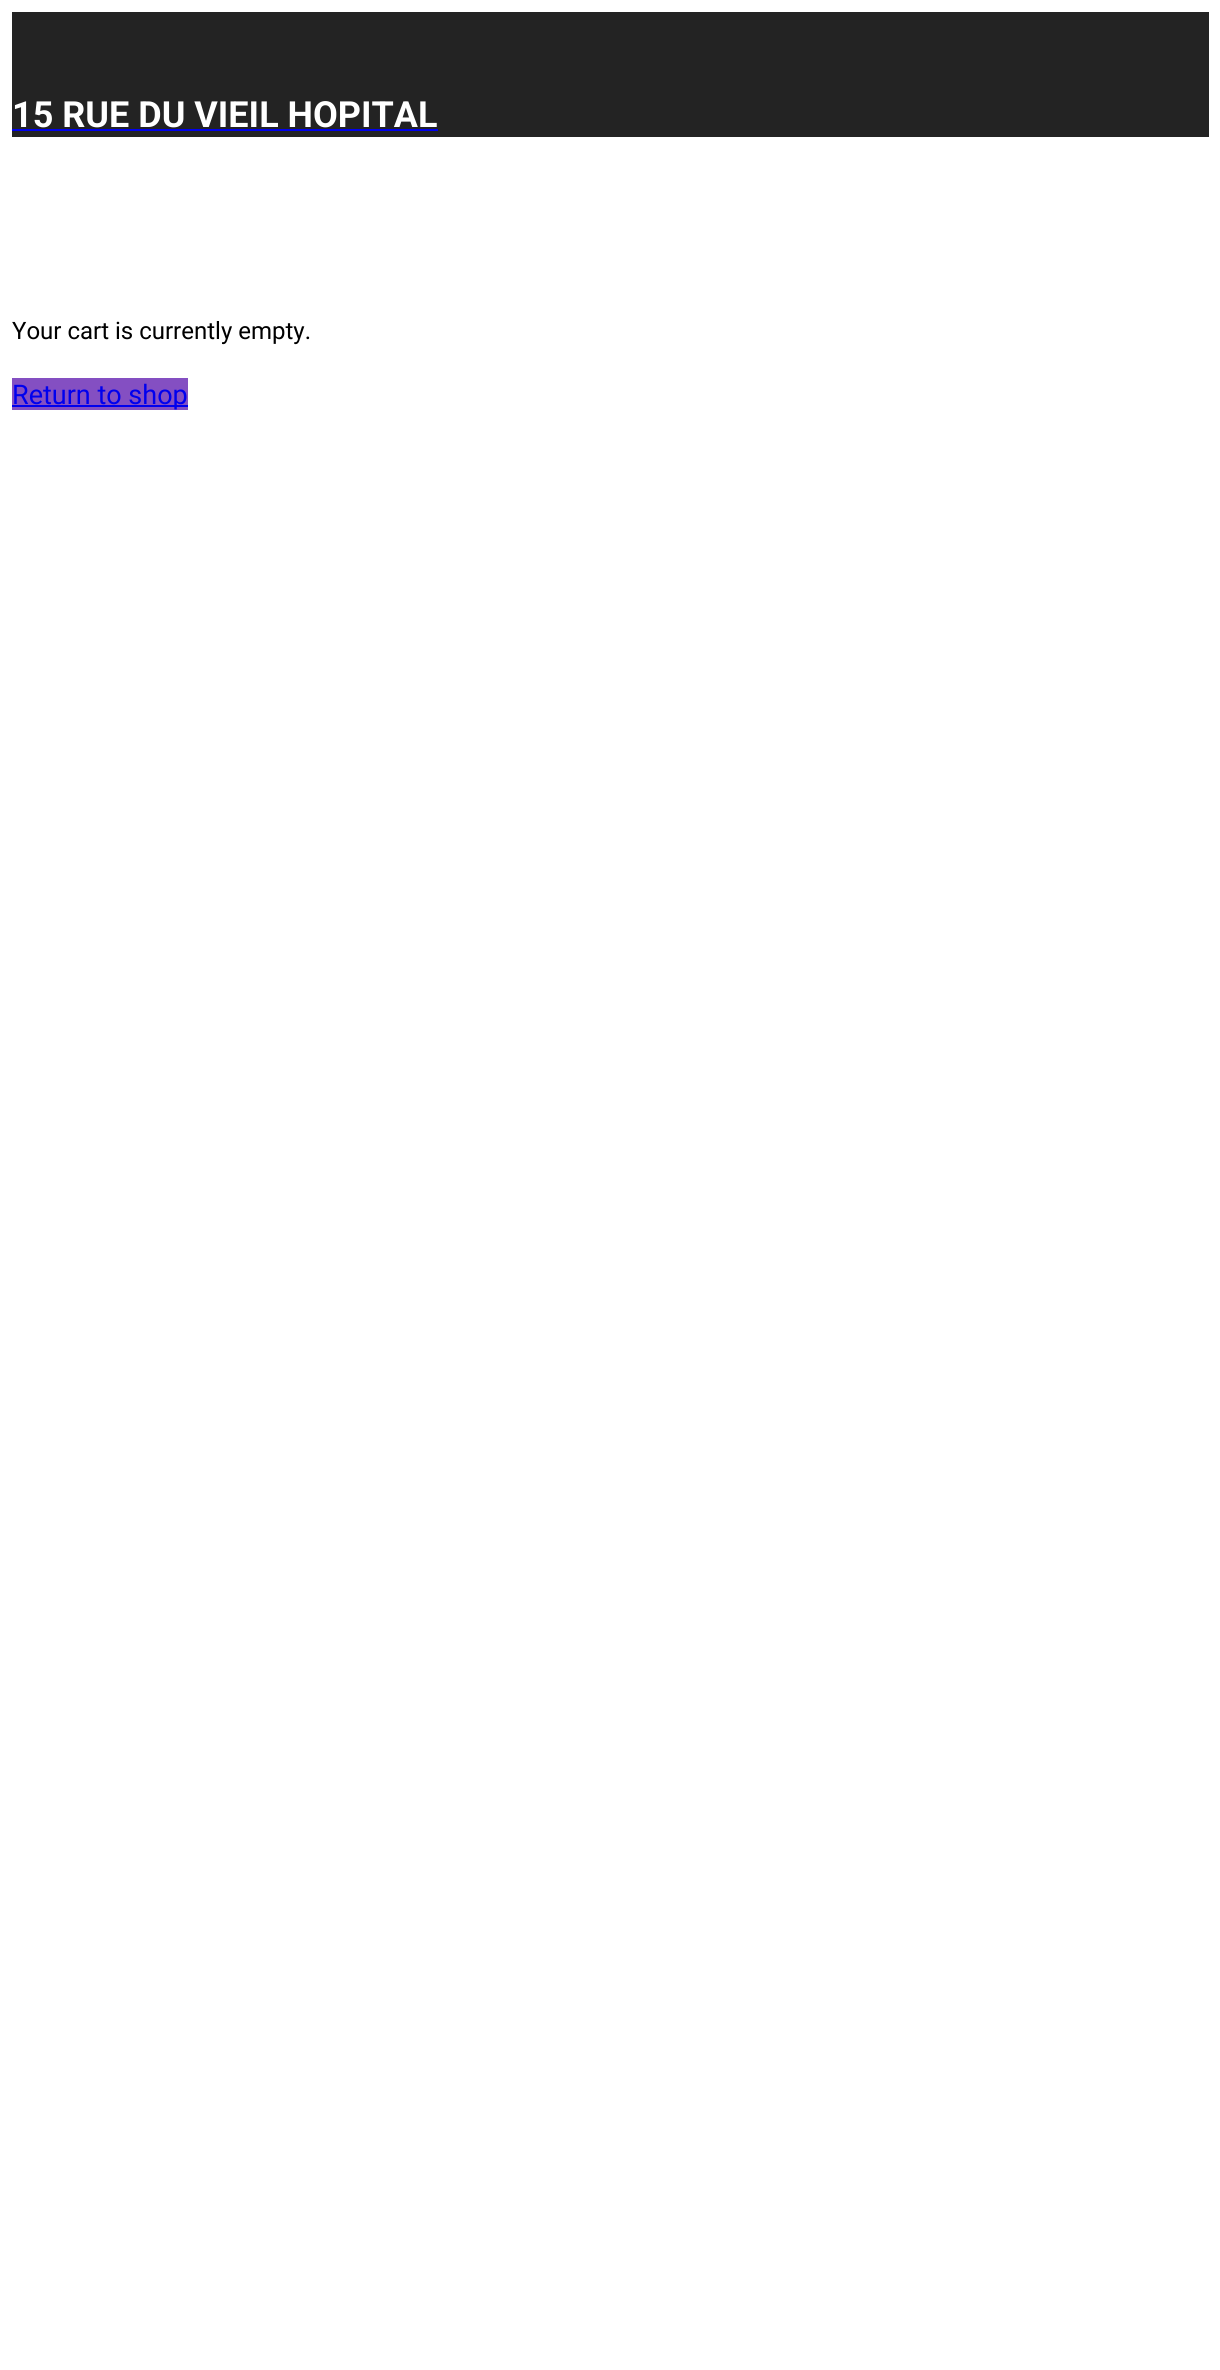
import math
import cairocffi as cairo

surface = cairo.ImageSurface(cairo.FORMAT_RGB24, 1220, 2370)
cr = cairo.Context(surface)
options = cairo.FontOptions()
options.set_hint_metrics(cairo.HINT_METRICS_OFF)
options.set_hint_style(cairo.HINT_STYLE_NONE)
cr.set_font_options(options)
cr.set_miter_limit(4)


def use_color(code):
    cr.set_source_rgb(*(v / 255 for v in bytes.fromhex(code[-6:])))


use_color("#ffffff")
cr.paint()
use_color("#232323")
cr.rectangle(12, 12, 1197, 125)
cr.fill()
cr.select_font_face("Roboto", cairo.FONT_SLANT_NORMAL, cairo.FONT_WEIGHT_BOLD)
cr.set_font_size(36)
use_color("#ffffff")
cr.move_to(12, 127)
cr.show_text("15 RUE DU VIEIL HOPITAL")
use_color("#0000ee")
cr.rectangle(12, 129, 426, 2)
cr.fill()
cr.select_font_face("Roboto")
cr.set_font_size(24)
use_color("#000000")
cr.move_to(12, 339)
cr.show_text("Your cart is currently empty.")
use_color("#844fc2")
cr.rectangle(12, 378, 176, 32)
cr.fill()
use_color("#0000ee")
cr.rectangle(12, 405, 176, 2)
cr.fill()
cr.set_font_size(27)
cr.move_to(12, 404)
cr.show_text("Return to shop")
surface.write_to_png("result.png")
